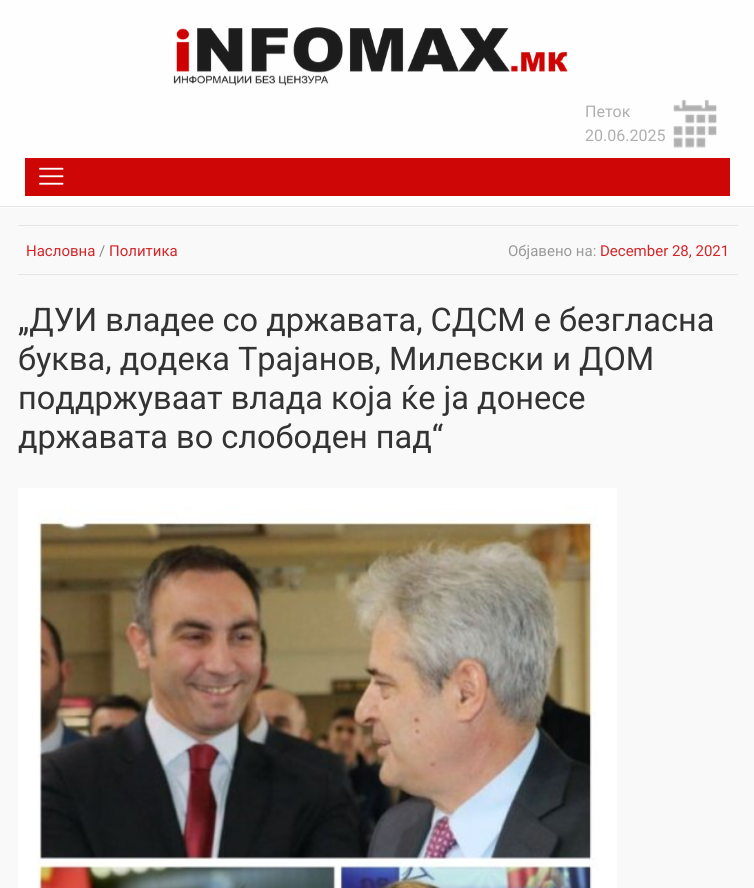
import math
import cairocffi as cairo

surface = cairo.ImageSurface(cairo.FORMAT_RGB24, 754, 888)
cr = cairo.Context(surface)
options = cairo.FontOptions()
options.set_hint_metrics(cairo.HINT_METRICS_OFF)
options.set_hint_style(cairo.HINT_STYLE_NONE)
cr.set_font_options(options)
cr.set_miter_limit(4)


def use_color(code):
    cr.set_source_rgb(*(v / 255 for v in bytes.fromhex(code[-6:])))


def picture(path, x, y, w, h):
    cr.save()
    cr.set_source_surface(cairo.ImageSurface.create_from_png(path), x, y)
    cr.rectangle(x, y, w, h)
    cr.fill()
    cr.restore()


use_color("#f9f9f9")
cr.paint()
cr.set_source_rgba(1, 1, 1, 0.87)
cr.rectangle(0, 0, 754, 208)
cr.fill()
use_color("#e5e5e5")
cr.rectangle(0, 206, 754, 1)
cr.fill()
picture("img1.png", 173, 27, 395, 59)
cr.select_font_face("Roboto")
cr.set_font_size(16)
use_color("#afafaf")
cr.move_to(585, 117)
cr.show_text("Петок")
cr.move_to(585, 141)
cr.show_text("20.06.2025")
picture("img2.png", 673, 99, 44, 49)
use_color("#cf0606")
cr.rectangle(25, 158, 705, 38)
cr.fill()
picture("img3.png", 39, 167, 25, 18)
use_color("#e5e5e5")
cr.rectangle(18, 225, 720, 1)
cr.fill()
cr.rectangle(18, 274, 720, 1)
cr.fill()
cr.set_font_size(15)
use_color("#d42629")
cr.move_to(26, 256)
cr.show_text("Насловна")
use_color("#888888")
cr.move_to(99, 256)
cr.show_text("/")
use_color("#d42629")
cr.move_to(109, 256)
cr.show_text("Политика")
use_color("#9a9a9a")
cr.move_to(508, 256)
cr.show_text("Објавено на:")
use_color("#d42629")
cr.move_to(600, 256)
cr.show_text("December 28, 2021")
cr.set_font_size(32.5)
use_color("#333333")
cr.move_to(18, 331)
cr.show_text("„ДУИ владее со државата, СДСМ е бeзгласна")
cr.move_to(18, 370)
cr.show_text("буква, додека Трајанов, Милевски и ДОМ")
cr.move_to(18, 409)
cr.show_text("поддржуваат влада која ќе ја донесе")
cr.move_to(18, 448)
cr.show_text("државата во слободен пад“")
picture("img4.png", 18, 488, 599, 400)
surface.write_to_png("result.png")
